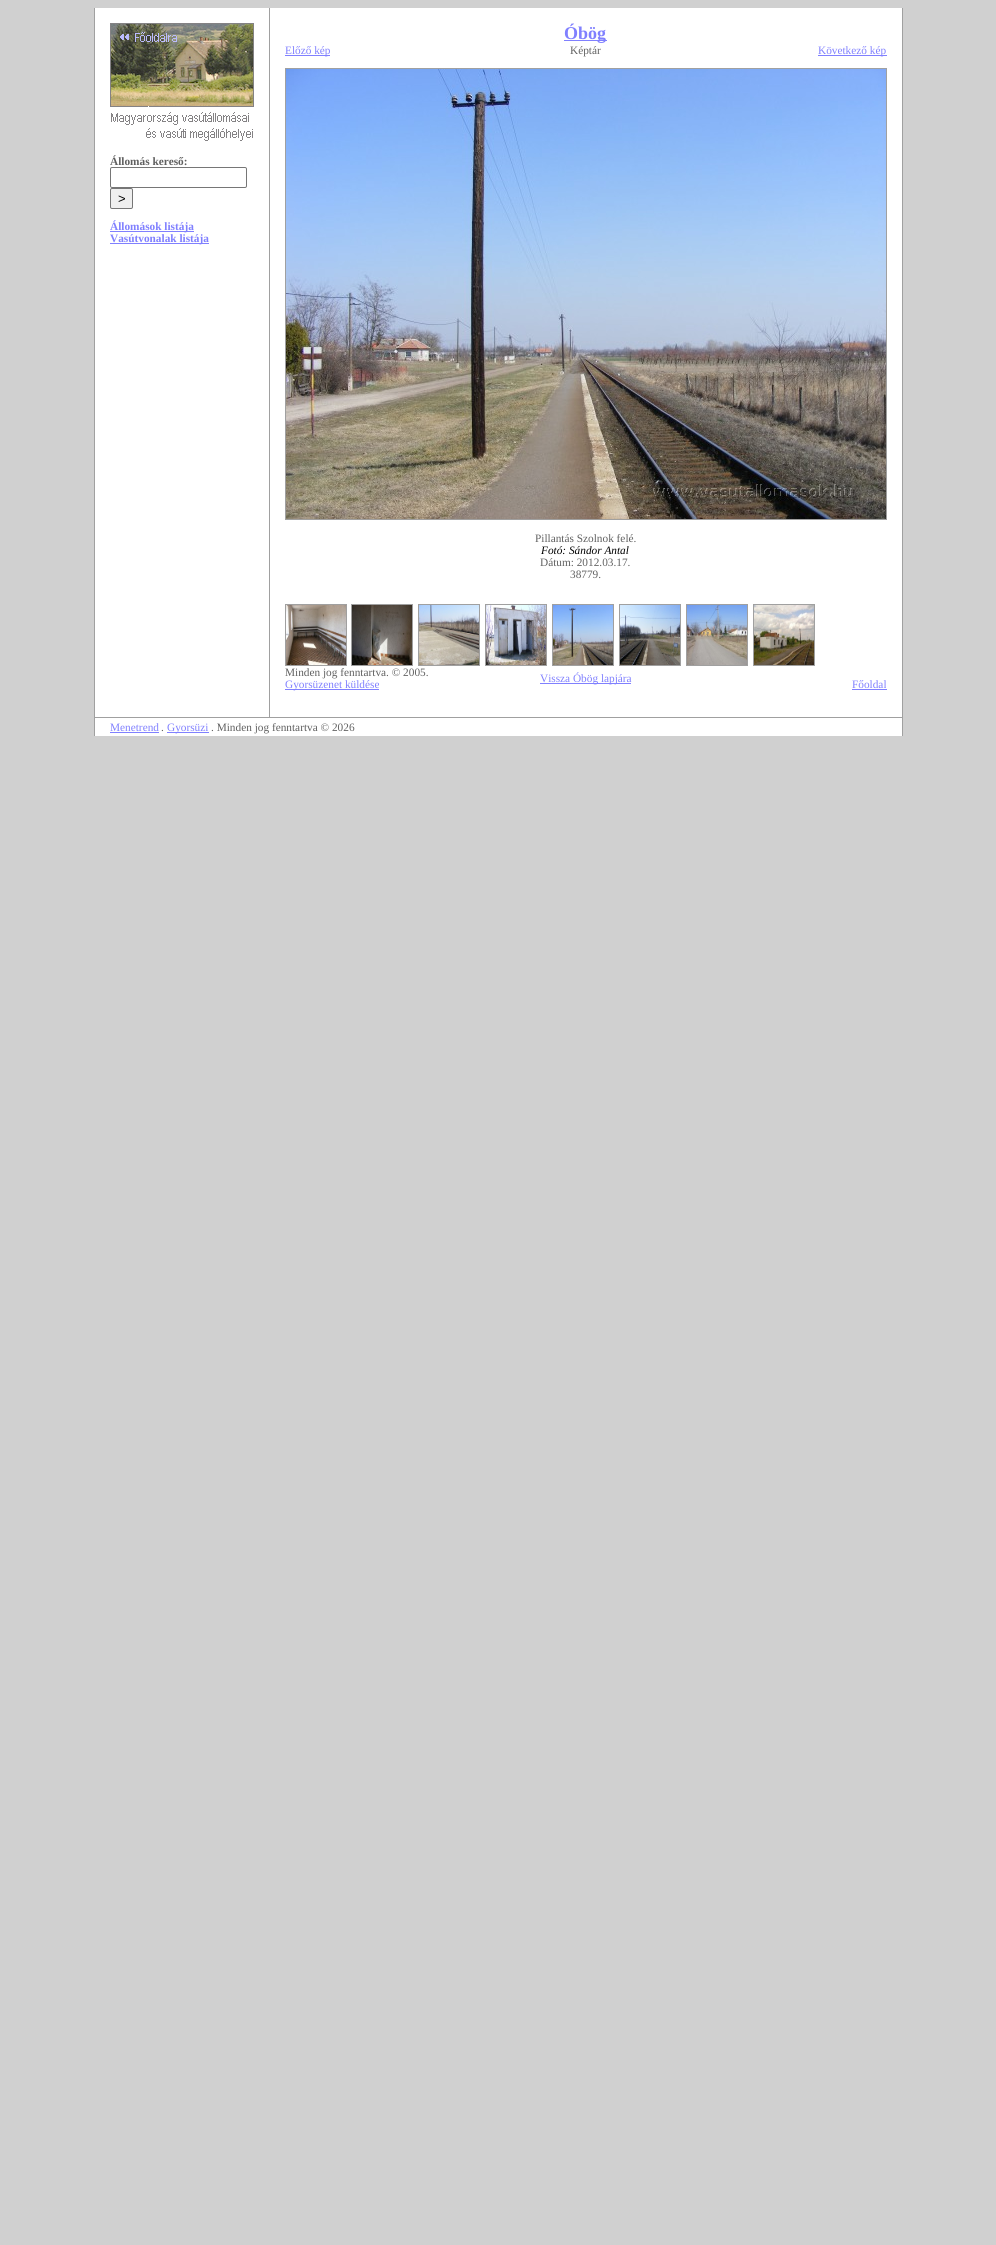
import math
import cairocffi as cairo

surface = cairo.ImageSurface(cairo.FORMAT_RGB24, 996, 2245)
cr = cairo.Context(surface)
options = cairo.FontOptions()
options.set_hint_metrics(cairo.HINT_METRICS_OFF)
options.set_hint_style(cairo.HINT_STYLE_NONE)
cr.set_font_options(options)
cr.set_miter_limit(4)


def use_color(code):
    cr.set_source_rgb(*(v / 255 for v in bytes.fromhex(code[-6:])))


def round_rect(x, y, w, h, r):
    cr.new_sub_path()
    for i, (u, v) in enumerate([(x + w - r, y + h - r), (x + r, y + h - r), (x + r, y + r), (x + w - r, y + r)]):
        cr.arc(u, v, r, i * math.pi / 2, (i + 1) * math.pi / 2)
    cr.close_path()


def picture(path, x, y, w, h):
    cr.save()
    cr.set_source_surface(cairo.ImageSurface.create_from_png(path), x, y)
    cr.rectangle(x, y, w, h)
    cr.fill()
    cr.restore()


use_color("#d0d0d0")
cr.paint()
use_color("#ffffff")
cr.rectangle(95, 8, 807, 728)
cr.fill()
use_color("#a0a0a0")
cr.rectangle(94, 8, 1, 709)
cr.fill()
picture("img1.png", 110, 23, 144, 118)
cr.select_font_face("Liberation Serif", cairo.FONT_SLANT_NORMAL, cairo.FONT_WEIGHT_BOLD)
cr.set_font_size(11.3)
use_color("#606060")
cr.move_to(110, 165)
cr.show_text("Állomás kereső:")
round_rect(110.5, 167.5, 136, 20, 1.5)
use_color("#767676")
cr.set_line_width(1)
cr.stroke()
use_color("#efefef")
round_rect(110.5, 188.5, 22, 20, 1.5)
cr.fill_preserve()
use_color("#767676")
cr.stroke()
cr.select_font_face("Liberation Sans")
cr.set_font_size(13)
use_color("#000000")
cr.move_to(118, 203)
cr.show_text(">")
use_color("#8080ff")
cr.rectangle(110, 231, 84, 1)
cr.fill()
cr.select_font_face("Liberation Serif", cairo.FONT_SLANT_NORMAL, cairo.FONT_WEIGHT_BOLD)
cr.set_font_size(11.3)
cr.move_to(110, 230)
cr.show_text("Állomások listája")
cr.rectangle(110, 243, 99, 1)
cr.fill()
cr.move_to(110, 242)
cr.show_text("Vasútvonalak listája")
use_color("#a0a0a0")
cr.rectangle(902, 8, 1, 709)
cr.fill()
cr.rectangle(269, 8, 1, 709)
cr.fill()
use_color("#8080ff")
cr.rectangle(285, 55, 45, 1)
cr.fill()
cr.select_font_face("Liberation Serif")
cr.move_to(285, 54)
cr.show_text("Előző kép")
cr.rectangle(564, 40, 43, 1)
cr.fill()
cr.select_font_face("Liberation Serif", cairo.FONT_SLANT_NORMAL, cairo.FONT_WEIGHT_BOLD)
cr.set_font_size(18)
cr.move_to(564, 39)
cr.show_text("Óbög")
cr.select_font_face("Liberation Serif")
cr.set_font_size(11.3)
use_color("#606060")
cr.move_to(570, 54)
cr.show_text("Képtár")
use_color("#8080ff")
cr.rectangle(818, 55, 69, 1)
cr.fill()
cr.move_to(818, 54)
cr.show_text("Következő kép")
cr.rectangle(285.5, 68.5, 601, 451)
use_color("#a0a0a0")
cr.stroke()
picture("img2.png", 286, 69, 600, 450)
use_color("#606060")
cr.move_to(535, 542)
cr.show_text("Pillantás Szolnok felé.")
cr.select_font_face("Liberation Serif", cairo.FONT_SLANT_ITALIC)
use_color("#000000")
cr.move_to(541, 554)
cr.show_text("Fotó: Sándor Antal")
cr.select_font_face("Liberation Serif")
use_color("#606060")
cr.move_to(540, 566)
cr.show_text("Dátum: 2012.03.17.")
cr.move_to(570, 578)
cr.show_text("38779.")
cr.rectangle(285.5, 604.5, 61, 61)
use_color("#a0a0a0")
cr.stroke()
picture("img3.png", 286, 605, 60, 60)
cr.rectangle(351.5, 604.5, 61, 61)
cr.stroke()
picture("img4.png", 352, 605, 60, 60)
cr.rectangle(418.5, 604.5, 61, 61)
cr.stroke()
picture("img5.png", 419, 605, 60, 60)
cr.rectangle(485.5, 604.5, 61, 61)
cr.stroke()
picture("img6.png", 486, 605, 60, 60)
cr.rectangle(552.5, 604.5, 61, 61)
cr.stroke()
picture("img7.png", 553, 605, 60, 60)
cr.rectangle(619.5, 604.5, 61, 61)
cr.stroke()
picture("img8.png", 620, 605, 60, 60)
cr.rectangle(686.5, 604.5, 61, 61)
cr.stroke()
picture("img9.png", 687, 605, 60, 60)
cr.rectangle(753.5, 604.5, 61, 61)
cr.stroke()
picture("img10.png", 754, 605, 60, 60)
use_color("#606060")
cr.move_to(285, 676)
cr.show_text("Minden jog fenntartva. © 2005.")
use_color("#8080ff")
cr.rectangle(285, 689, 94, 1)
cr.fill()
cr.move_to(285, 688)
cr.show_text("Gyorsüzenet küldése")
cr.rectangle(540, 683, 91, 1)
cr.fill()
cr.move_to(540, 682)
cr.show_text("Vissza Óbög lapjára")
cr.move_to(852, 688)
cr.show_text("Főoldal")
cr.rectangle(852, 689, 35, 1)
cr.fill()
use_color("#a0a0a0")
cr.rectangle(94, 717, 809, 1)
cr.fill()
cr.rectangle(902, 717, 1, 19)
cr.fill()
cr.rectangle(94, 717, 1, 19)
cr.fill()
use_color("#8080ff")
cr.move_to(110, 731)
cr.show_text("Menetrend")
cr.rectangle(110, 732, 49, 1)
cr.fill()
use_color("#606060")
cr.move_to(161, 731)
cr.show_text(".")
use_color("#8080ff")
cr.rectangle(167, 732, 42, 1)
cr.fill()
cr.move_to(167, 731)
cr.show_text("Gyorsüzi")
use_color("#606060")
cr.move_to(211, 731)
cr.show_text(". Minden jog fenntartva © 2026")
surface.write_to_png("result.png")
